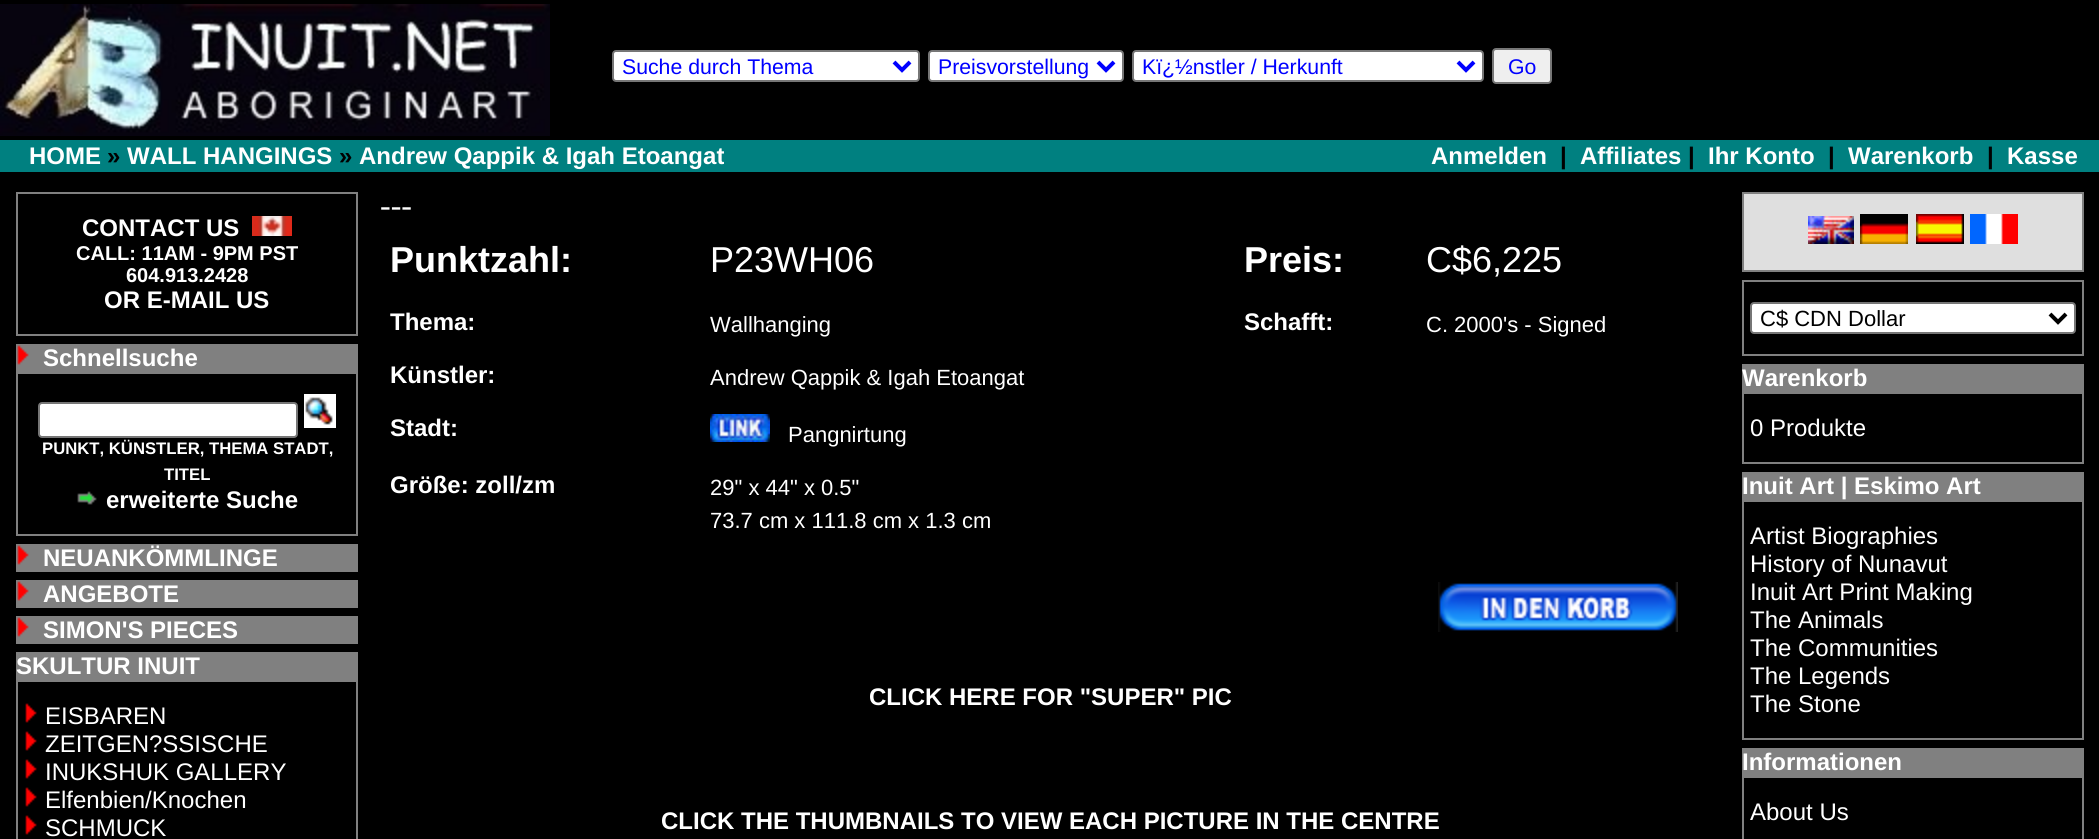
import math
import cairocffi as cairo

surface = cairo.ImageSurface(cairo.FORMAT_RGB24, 2099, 839)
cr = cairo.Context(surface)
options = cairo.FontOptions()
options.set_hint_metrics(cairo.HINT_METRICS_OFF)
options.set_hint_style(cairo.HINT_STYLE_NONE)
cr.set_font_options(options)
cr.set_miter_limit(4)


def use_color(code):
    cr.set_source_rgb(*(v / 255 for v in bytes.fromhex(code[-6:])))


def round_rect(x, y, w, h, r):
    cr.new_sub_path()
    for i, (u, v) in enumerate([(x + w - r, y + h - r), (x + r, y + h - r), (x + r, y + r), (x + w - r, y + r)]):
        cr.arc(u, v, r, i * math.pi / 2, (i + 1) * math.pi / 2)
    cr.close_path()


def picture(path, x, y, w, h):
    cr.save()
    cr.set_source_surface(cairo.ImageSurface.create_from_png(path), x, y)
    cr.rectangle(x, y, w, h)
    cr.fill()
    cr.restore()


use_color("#000000")
cr.paint()
picture("img1.png", 0, 4, 550, 132)
use_color("#ffffff")
round_rect(613, 51, 306, 30, 3)
cr.fill_preserve()
use_color("#767676")
cr.stroke()
cr.new_path()
cr.move_to(894, 62)
cr.line_to(902, 70)
cr.line_to(910, 62)
use_color("#0000ff")
cr.set_line_width(4)
cr.stroke()
cr.select_font_face("Liberation Sans")
cr.set_font_size(21.25)
cr.move_to(622, 74)
cr.show_text("Suche durch Thema")
use_color("#ffffff")
round_rect(929, 51, 194, 30, 3)
cr.fill_preserve()
use_color("#767676")
cr.set_line_width(2)
cr.stroke()
cr.new_path()
cr.move_to(1098, 62)
cr.line_to(1106, 70)
cr.line_to(1114, 62)
use_color("#0000ff")
cr.set_line_width(4)
cr.stroke()
cr.move_to(938, 74)
cr.show_text("Preisvorstellung")
use_color("#ffffff")
round_rect(1133, 51, 350, 30, 3)
cr.fill_preserve()
use_color("#767676")
cr.set_line_width(2)
cr.stroke()
cr.new_path()
cr.move_to(1458, 62)
cr.line_to(1466, 70)
cr.line_to(1474, 62)
use_color("#0000ff")
cr.set_line_width(4)
cr.stroke()
cr.move_to(1142, 74)
cr.show_text("Kï¿½nstler / Herkunft")
use_color("#efefef")
round_rect(1493, 49, 58, 34, 3)
cr.fill_preserve()
use_color("#767676")
cr.set_line_width(2)
cr.stroke()
use_color("#0000ff")
cr.move_to(1508, 74)
cr.show_text("Go")
use_color("#008080")
cr.rectangle(0, 140, 2099, 32)
cr.fill()
cr.select_font_face("Liberation Sans", cairo.FONT_SLANT_NORMAL, cairo.FONT_WEIGHT_BOLD)
cr.set_font_size(24)
use_color("#ffffff")
cr.move_to(29, 164)
cr.show_text("HOME")
use_color("#000000")
cr.move_to(107, 164)
cr.show_text("»")
use_color("#ffffff")
cr.move_to(127, 164)
cr.show_text("WALL HANGINGS")
use_color("#000000")
cr.move_to(339, 164)
cr.show_text("»")
use_color("#ffffff")
cr.move_to(359, 164)
cr.show_text("Andrew Qappik & Igah Etoangat")
cr.move_to(1431, 164)
cr.show_text("Anmelden")
use_color("#000000")
cr.move_to(1560, 164)
cr.show_text("|")
use_color("#ffffff")
cr.move_to(1580, 164)
cr.show_text("Affiliates")
use_color("#000000")
cr.move_to(1688, 164)
cr.show_text("|")
use_color("#ffffff")
cr.move_to(1708, 164)
cr.show_text("Ihr Konto")
use_color("#000000")
cr.move_to(1828, 164)
cr.show_text("|")
use_color("#ffffff")
cr.move_to(1848, 164)
cr.show_text("Warenkorb")
use_color("#000000")
cr.move_to(1987, 164)
cr.show_text("|")
use_color("#ffffff")
cr.move_to(2007, 164)
cr.show_text("Kasse")
use_color("#808080")
cr.rectangle(16, 192, 342, 144)
cr.fill()
use_color("#000000")
cr.rectangle(18, 194, 338, 140)
cr.fill()
use_color("#ffffff")
cr.move_to(82, 236)
cr.show_text("CONTACT US")
picture("img2.png", 252, 216, 40, 20)
cr.set_font_size(20)
cr.move_to(76, 260)
cr.show_text("CALL: 11AM - 9PM PST")
cr.move_to(126, 282)
cr.show_text("604.913.2428")
cr.set_font_size(24)
cr.move_to(104, 308)
cr.show_text("OR E-MAIL US")
use_color("#808080")
cr.rectangle(16, 344, 342, 192)
cr.fill()
picture("img3.png", 17, 345, 12, 20)
use_color("#ffffff")
cr.move_to(43, 366)
cr.show_text("Schnellsuche")
use_color("#000000")
cr.rectangle(18, 374, 338, 160)
cr.fill()
use_color("#ffffff")
round_rect(39, 403, 258, 34, 3)
cr.fill_preserve()
use_color("#767676")
cr.stroke()
picture("img4.png", 304, 394, 32, 34)
cr.set_font_size(16.7)
use_color("#ffffff")
cr.move_to(42, 454)
cr.show_text("PUNKT, KÜNSTLER, THEMA STADT,")
cr.move_to(164, 480)
cr.show_text("TITEL")
picture("img5.png", 77, 491, 20, 14)
cr.set_font_size(24)
cr.move_to(106, 508)
cr.show_text("erweiterte Suche")
use_color("#808080")
cr.rectangle(16, 544, 342, 28)
cr.fill()
picture("img3.png", 17, 545, 12, 20)
use_color("#ffffff")
cr.move_to(43, 566)
cr.show_text("NEUANKÖMMLINGE")
use_color("#808080")
cr.rectangle(16, 580, 342, 28)
cr.fill()
picture("img3.png", 17, 581, 12, 20)
use_color("#ffffff")
cr.move_to(43, 602)
cr.show_text("ANGEBOTE")
use_color("#808080")
cr.rectangle(16, 616, 342, 28)
cr.fill()
picture("img3.png", 17, 617, 12, 20)
use_color("#ffffff")
cr.move_to(43, 638)
cr.show_text("SIMON'S PIECES")
use_color("#808080")
cr.rectangle(16, 652, 342, 187)
cr.fill()
use_color("#ffffff")
cr.move_to(16, 674)
cr.show_text("SKULTUR INUIT")
use_color("#000000")
cr.rectangle(18, 682, 338, 157)
cr.fill()
picture("img6.png", 25, 703, 12, 20)
cr.select_font_face("Liberation Sans")
use_color("#ffffff")
cr.move_to(45, 724)
cr.show_text("EISBAREN")
picture("img6.png", 25, 731, 12, 20)
cr.move_to(45, 752)
cr.show_text("ZEITGEN?SSISCHE")
picture("img6.png", 25, 759, 12, 20)
cr.move_to(45, 780)
cr.show_text("INUKSHUK GALLERY")
picture("img6.png", 25, 787, 12, 20)
cr.move_to(45, 808)
cr.show_text("Elfenbien/Knochen")
picture("img6.png", 25, 815, 12, 20)
cr.move_to(45, 836)
cr.show_text("SCHMUCK")
cr.select_font_face("Liberation Serif")
cr.set_font_size(32)
cr.move_to(380, 216)
cr.show_text("---")
cr.select_font_face("Liberation Sans", cairo.FONT_SLANT_NORMAL, cairo.FONT_WEIGHT_BOLD)
cr.set_font_size(36)
cr.move_to(390, 272)
cr.show_text("Punktzahl:")
cr.select_font_face("Liberation Sans")
cr.move_to(710, 272)
cr.show_text("P23WH06")
cr.select_font_face("Liberation Sans", cairo.FONT_SLANT_NORMAL, cairo.FONT_WEIGHT_BOLD)
cr.move_to(1244, 272)
cr.show_text("Preis:")
cr.select_font_face("Liberation Sans")
cr.move_to(1426, 272)
cr.show_text("C$6,225")
cr.select_font_face("Liberation Sans", cairo.FONT_SLANT_NORMAL, cairo.FONT_WEIGHT_BOLD)
cr.set_font_size(24)
cr.move_to(390, 330)
cr.show_text("Thema:")
cr.select_font_face("Liberation Sans")
cr.set_font_size(22)
cr.move_to(710, 332)
cr.show_text("Wallhanging")
cr.select_font_face("Liberation Sans", cairo.FONT_SLANT_NORMAL, cairo.FONT_WEIGHT_BOLD)
cr.set_font_size(24)
cr.move_to(1244, 330)
cr.show_text("Schafft:")
cr.select_font_face("Liberation Sans")
cr.set_font_size(22)
cr.move_to(1426, 332)
cr.show_text("C. 2000's - Signed")
cr.select_font_face("Liberation Sans", cairo.FONT_SLANT_NORMAL, cairo.FONT_WEIGHT_BOLD)
cr.set_font_size(24)
cr.move_to(390, 383)
cr.show_text("Künstler:")
cr.select_font_face("Liberation Sans")
cr.set_font_size(22)
cr.move_to(710, 385)
cr.show_text("Andrew Qappik & Igah Etoangat")
cr.select_font_face("Liberation Sans", cairo.FONT_SLANT_NORMAL, cairo.FONT_WEIGHT_BOLD)
cr.set_font_size(24)
cr.move_to(390, 436)
cr.show_text("Stadt:")
picture("img7.png", 710, 414, 60, 28)
cr.select_font_face("Liberation Sans")
cr.set_font_size(22)
cr.move_to(788, 442)
cr.show_text("Pangnirtung")
cr.select_font_face("Liberation Sans", cairo.FONT_SLANT_NORMAL, cairo.FONT_WEIGHT_BOLD)
cr.set_font_size(24)
cr.move_to(390, 493)
cr.show_text("Größe: zoll/zm")
cr.select_font_face("Liberation Sans")
cr.set_font_size(22)
cr.move_to(710, 495)
cr.show_text("29\" x 44\" x 0.5\"")
cr.move_to(710, 528)
cr.show_text("73.7 cm x 111.8 cm x 1.3 cm")
picture("img8.png", 1438, 582, 240, 50)
cr.select_font_face("Liberation Sans", cairo.FONT_SLANT_NORMAL, cairo.FONT_WEIGHT_BOLD)
cr.set_font_size(24)
cr.move_to(869, 705)
cr.show_text("CLICK HERE FOR \"SUPER\" PIC")
cr.move_to(661, 829)
cr.show_text("CLICK THE THUMBNAILS TO VIEW EACH PICTURE IN THE CENTRE")
use_color("#808080")
cr.rectangle(1742, 192, 342, 80)
cr.fill()
use_color("#dfdfdf")
cr.rectangle(1744, 194, 338, 76)
cr.fill()
picture("img9.png", 1808, 216, 46, 28)
picture("img10.png", 1860, 214, 48, 30)
picture("img11.png", 1916, 214, 48, 30)
picture("img12.png", 1970, 214, 48, 30)
use_color("#808080")
cr.rectangle(1742, 280, 342, 76)
cr.fill()
use_color("#000000")
cr.rectangle(1744, 282, 338, 72)
cr.fill()
use_color("#ffffff")
round_rect(1751, 303, 324, 30, 3)
cr.fill_preserve()
use_color("#767676")
cr.stroke()
cr.new_path()
cr.move_to(2050, 314)
cr.line_to(2058, 322)
cr.line_to(2066, 314)
use_color("#000000")
cr.set_line_width(4)
cr.stroke()
cr.select_font_face("Liberation Sans")
cr.set_font_size(22)
cr.move_to(1760, 326)
cr.show_text("C$ CDN Dollar")
use_color("#808080")
cr.rectangle(1742, 364, 342, 100)
cr.fill()
cr.select_font_face("Liberation Sans", cairo.FONT_SLANT_NORMAL, cairo.FONT_WEIGHT_BOLD)
cr.set_font_size(24)
use_color("#ffffff")
cr.move_to(1742, 386)
cr.show_text("Warenkorb")
use_color("#000000")
cr.rectangle(1744, 394, 338, 68)
cr.fill()
cr.select_font_face("Liberation Sans")
use_color("#ffffff")
cr.move_to(1750, 436)
cr.show_text("0 Produkte")
use_color("#808080")
cr.rectangle(1742, 472, 342, 268)
cr.fill()
cr.select_font_face("Liberation Sans", cairo.FONT_SLANT_NORMAL, cairo.FONT_WEIGHT_BOLD)
use_color("#ffffff")
cr.move_to(1742, 494)
cr.show_text("Inuit Art | Eskimo Art")
use_color("#000000")
cr.rectangle(1744, 502, 338, 236)
cr.fill()
cr.select_font_face("Liberation Sans")
use_color("#ffffff")
cr.move_to(1750, 544)
cr.show_text("Artist Biographies")
cr.move_to(1750, 572)
cr.show_text("History of Nunavut")
cr.move_to(1750, 600)
cr.show_text("Inuit Art Print Making")
cr.move_to(1750, 628)
cr.show_text("The Animals")
cr.move_to(1750, 656)
cr.show_text("The Communities")
cr.move_to(1750, 684)
cr.show_text("The Legends")
cr.move_to(1750, 712)
cr.show_text("The Stone")
use_color("#808080")
cr.rectangle(1742, 748, 342, 91)
cr.fill()
cr.select_font_face("Liberation Sans", cairo.FONT_SLANT_NORMAL, cairo.FONT_WEIGHT_BOLD)
use_color("#ffffff")
cr.move_to(1742, 770)
cr.show_text("Informationen")
use_color("#000000")
cr.rectangle(1744, 778, 338, 61)
cr.fill()
cr.select_font_face("Liberation Sans")
use_color("#ffffff")
cr.move_to(1750, 820)
cr.show_text("About Us")
surface.write_to_png("result.png")
